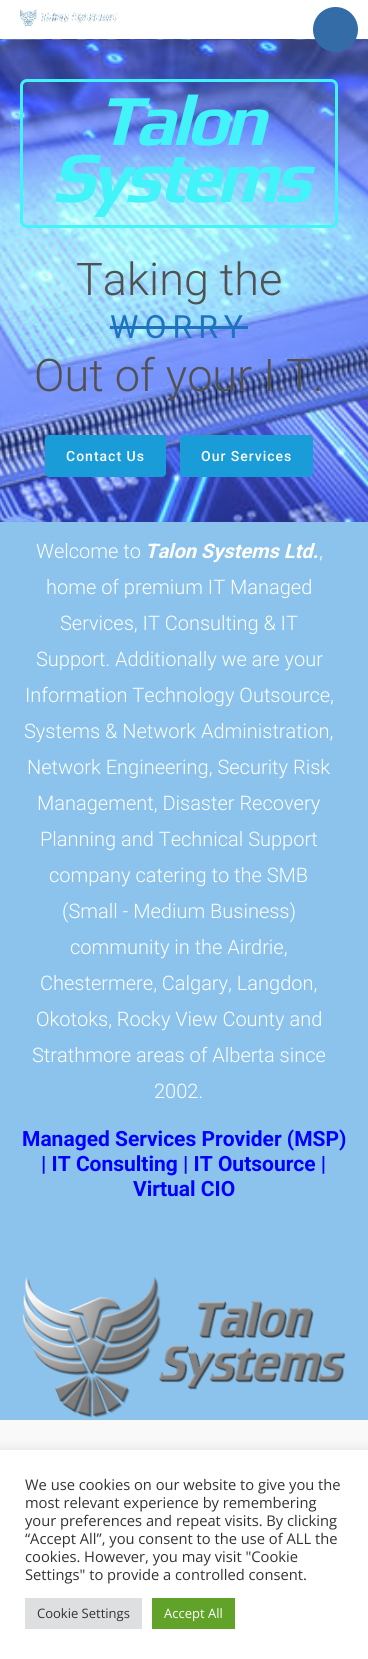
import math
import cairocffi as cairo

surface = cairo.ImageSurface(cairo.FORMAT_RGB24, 368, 1659)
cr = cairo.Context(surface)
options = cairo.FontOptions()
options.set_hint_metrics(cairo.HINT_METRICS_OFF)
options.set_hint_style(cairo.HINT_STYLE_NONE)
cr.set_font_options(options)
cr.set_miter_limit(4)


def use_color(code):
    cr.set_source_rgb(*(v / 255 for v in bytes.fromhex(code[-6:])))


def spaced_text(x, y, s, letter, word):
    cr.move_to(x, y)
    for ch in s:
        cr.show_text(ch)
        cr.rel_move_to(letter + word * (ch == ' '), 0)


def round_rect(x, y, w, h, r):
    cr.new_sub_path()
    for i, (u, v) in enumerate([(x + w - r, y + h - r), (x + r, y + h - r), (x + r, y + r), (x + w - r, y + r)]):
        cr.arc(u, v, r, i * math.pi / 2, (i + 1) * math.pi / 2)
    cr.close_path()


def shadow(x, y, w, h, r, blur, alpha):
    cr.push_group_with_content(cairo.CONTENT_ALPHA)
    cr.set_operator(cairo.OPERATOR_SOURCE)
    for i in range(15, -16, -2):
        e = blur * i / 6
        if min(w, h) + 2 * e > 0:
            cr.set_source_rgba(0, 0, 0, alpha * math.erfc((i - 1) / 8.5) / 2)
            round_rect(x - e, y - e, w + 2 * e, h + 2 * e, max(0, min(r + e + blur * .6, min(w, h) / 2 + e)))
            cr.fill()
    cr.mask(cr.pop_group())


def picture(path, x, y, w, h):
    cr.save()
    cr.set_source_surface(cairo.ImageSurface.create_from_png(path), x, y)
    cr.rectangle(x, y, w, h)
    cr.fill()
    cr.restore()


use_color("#f9f9f9")
cr.paint()
use_color("#ffffff")
cr.rectangle(0, 0, 368, 39)
cr.fill()
picture("img1.png", 20, 9, 97, 17)
picture("img2.png", 0, 39, 368, 483)
use_color("#336ca6")
cr.arc(335.5, 29.5, 22.5, 0, 2 * math.pi)
cr.fill()
round_rect(21.5, 80.5, 315, 146, 5.5)
use_color("#42f3f9")
cr.set_line_width(3)
cr.stroke()
cr.select_font_face("Play", cairo.FONT_SLANT_ITALIC, cairo.FONT_WEIGHT_BOLD)
cr.set_font_size(72)
spaced_text(97, 145, "Talon", -5, 0)
spaced_text(51, 202, "Systems", -5, 0)
cr.select_font_face("Roboto Light")
cr.set_font_size(45)
use_color("#515151")
cr.move_to(76, 295)
cr.show_text("Taking the")
cr.select_font_face("Roboto")
cr.set_font_size(32)
use_color("#1e73be")
spaced_text(110, 338, "WORRY", 6, 0)
cr.rectangle(110, 326, 138, 3)
cr.fill()
cr.select_font_face("Roboto Light")
cr.set_font_size(45)
use_color("#515151")
cr.move_to(34, 391)
cr.show_text("Out of your I.T.")
use_color("#199cd8")
round_rect(45, 435, 121, 42, 4)
cr.fill()
cr.select_font_face("Roboto Medium")
cr.set_font_size(14)
use_color("#ffffff")
spaced_text(66, 461, "Contact Us", 1, 0)
use_color("#199cd8")
round_rect(180, 435, 133, 42, 4)
cr.fill()
use_color("#ffffff")
spaced_text(201, 461, "Our Services", 1, 0)
use_color("#8bc3ed")
cr.rectangle(0, 522, 368, 898)
cr.fill()
cr.select_font_face("Roboto Light")
cr.set_font_size(20)
use_color("#ffffff")
cr.move_to(36, 558)
cr.show_text("Welcome to")
cr.select_font_face("Roboto", cairo.FONT_SLANT_ITALIC, cairo.FONT_WEIGHT_BOLD)
cr.move_to(145, 558)
cr.show_text("Talon Systems Ltd.")
cr.select_font_face("Roboto Light")
cr.move_to(319, 558)
cr.show_text(",")
cr.move_to(46, 594)
cr.show_text("home of premium IT Managed")
cr.move_to(60, 630)
cr.show_text("Services, IT Consulting & IT")
cr.move_to(36, 666)
cr.show_text("Support. Additionally we are your")
cr.move_to(25, 702)
cr.show_text("Information Technology Outsource,")
cr.move_to(24, 738)
cr.show_text("Systems & Network Administration,")
cr.move_to(27, 774)
cr.show_text("Network Engineering, Security Risk")
cr.move_to(37, 810)
cr.show_text("Management, Disaster Recovery")
cr.move_to(40, 846)
cr.show_text("Planning and Technical Support")
cr.move_to(49, 882)
cr.show_text("company catering to the SMB")
cr.move_to(62, 918)
cr.show_text("(Small - Medium Business)")
cr.move_to(70, 954)
cr.show_text("community in the Airdrie,")
cr.move_to(40, 990)
cr.show_text("Chestermere, Calgary, Langdon,")
cr.move_to(36, 1026)
cr.show_text("Okotoks, Rocky View County and")
cr.move_to(32, 1062)
cr.show_text("Strathmore areas of Alberta since")
cr.move_to(154, 1098)
cr.show_text("2002.")
cr.select_font_face("Roboto", cairo.FONT_SLANT_NORMAL, cairo.FONT_WEIGHT_BOLD)
cr.set_font_size(21)
use_color("#0000ff")
cr.move_to(22, 1146)
cr.show_text("Managed Services Provider (MSP)")
cr.move_to(41, 1171)
cr.show_text("| IT Consulting | IT Outsource |")
cr.move_to(133, 1196)
cr.show_text("Virtual CIO")
picture("img3.png", 22, 1277, 324, 141)
use_color("#acabab")
shadow(0, 1449, 368, 209, 0, 5, 0.3)
use_color("#ffffff")
cr.rectangle(0, 1450, 368, 209)
cr.fill()
cr.select_font_face("Open Sans")
cr.set_font_size(14.7)
use_color("#333333")
cr.move_to(25, 1490)
cr.show_text("We use cookies on our website to give you the")
cr.move_to(25, 1508)
cr.show_text("most relevant experience by remembering")
cr.move_to(25, 1526)
cr.show_text("your preferences and repeat visits. By clicking")
cr.move_to(25, 1544)
cr.show_text("“Accept All”, you consent to the use of ALL the")
cr.move_to(25, 1562)
cr.show_text("cookies. However, you may visit \"Cookie")
cr.move_to(25, 1580)
cr.show_text("Settings\" to provide a controlled consent.")
use_color("#dedfe0")
cr.rectangle(25, 1598, 117, 31)
cr.fill()
cr.set_font_size(13)
use_color("#333333")
cr.move_to(37, 1618)
cr.show_text("Cookie Settings")
use_color("#61a229")
cr.rectangle(152, 1598, 83, 31)
cr.fill()
use_color("#ffffff")
cr.move_to(164, 1618)
cr.show_text("Accept All")
surface.write_to_png("result.png")
